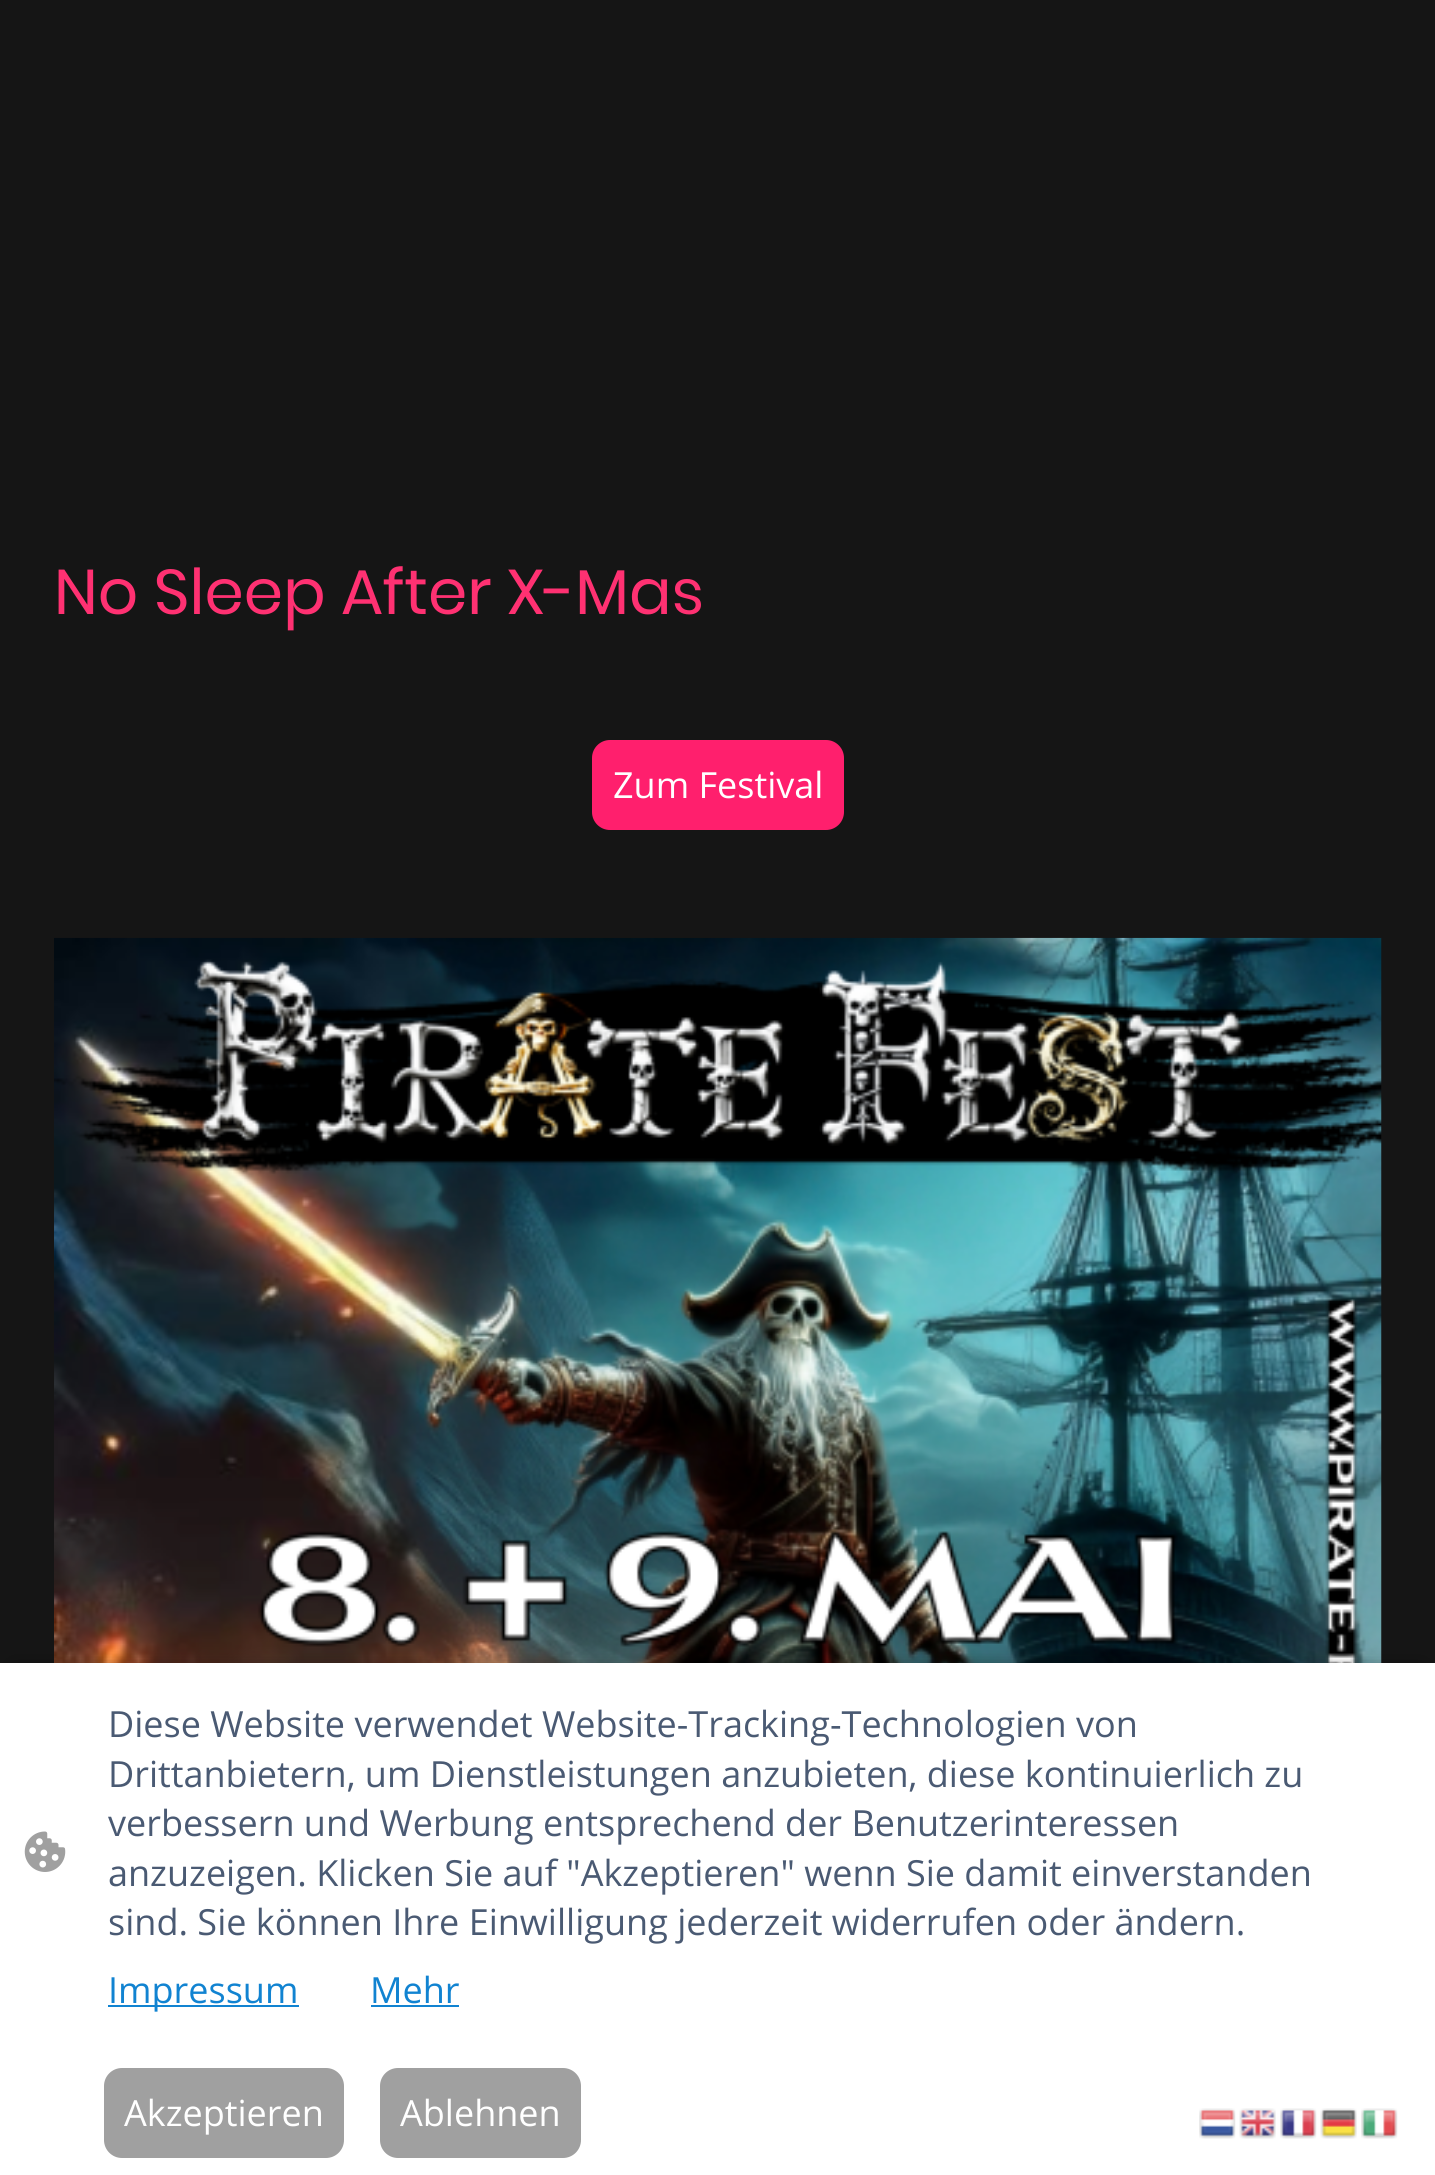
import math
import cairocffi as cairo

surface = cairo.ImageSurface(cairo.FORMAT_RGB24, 1435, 2175)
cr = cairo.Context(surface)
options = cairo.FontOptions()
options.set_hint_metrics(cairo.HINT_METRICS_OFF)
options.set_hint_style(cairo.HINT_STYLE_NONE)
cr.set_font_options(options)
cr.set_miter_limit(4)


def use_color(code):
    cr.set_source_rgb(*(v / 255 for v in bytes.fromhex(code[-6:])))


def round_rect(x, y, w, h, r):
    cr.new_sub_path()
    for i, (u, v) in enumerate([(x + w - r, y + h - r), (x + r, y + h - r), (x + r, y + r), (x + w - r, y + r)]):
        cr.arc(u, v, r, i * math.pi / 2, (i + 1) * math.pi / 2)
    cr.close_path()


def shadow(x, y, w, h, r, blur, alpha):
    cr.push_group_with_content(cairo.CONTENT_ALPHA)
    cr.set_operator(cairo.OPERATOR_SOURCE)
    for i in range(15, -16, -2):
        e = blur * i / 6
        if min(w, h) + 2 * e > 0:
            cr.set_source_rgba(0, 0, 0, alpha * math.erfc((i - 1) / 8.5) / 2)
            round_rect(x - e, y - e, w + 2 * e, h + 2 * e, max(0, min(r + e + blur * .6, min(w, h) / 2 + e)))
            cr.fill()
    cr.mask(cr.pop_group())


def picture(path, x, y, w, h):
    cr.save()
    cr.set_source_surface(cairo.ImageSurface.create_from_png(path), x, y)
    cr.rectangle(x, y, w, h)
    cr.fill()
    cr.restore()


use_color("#151515")
cr.paint()
cr.select_font_face("Poppins")
cr.set_font_size(63)
use_color("#ff3172")
cr.move_to(54, 614)
cr.show_text("No Sleep After X-Mas")
use_color("#ff1f6d")
round_rect(593, 741, 250, 88, 17)
cr.fill_preserve()
cr.stroke()
cr.select_font_face("Open Sans")
cr.set_font_size(36)
use_color("#ffffff")
cr.move_to(613, 798)
cr.show_text("Zum Festival")
picture("img1.png", 54, 937, 1328, 726)
use_color("#000000")
shadow(14, 1670, 1408, 486, 0, 9, 0.63)
use_color("#ffffff")
cr.rectangle(0, 1663, 1435, 512)
cr.fill()
picture("img2.png", 24, 1831, 42, 41)
use_color("#4a5a73")
cr.move_to(108, 1737)
cr.show_text("Diese Website verwendet Website-Tracking-Technologien von")
cr.move_to(108, 1787)
cr.show_text("Drittanbietern, um Dienstleistungen anzubieten, diese kontinuierlich zu")
cr.move_to(108, 1836)
cr.show_text("verbessern und Werbung entsprechend der Benutzerinteressen")
cr.move_to(108, 1886)
cr.show_text("anzuzeigen. Klicken Sie auf \"Akzeptieren\" wenn Sie damit einverstanden")
cr.move_to(108, 1935)
cr.show_text("sind. Sie können Ihre Einwilligung jederzeit widerrufen oder ändern.")
use_color("#1183d1")
cr.rectangle(108, 2005, 191, 2)
cr.fill()
cr.move_to(108, 2003)
cr.show_text("Impressum")
cr.move_to(370, 2003)
cr.show_text("Mehr")
cr.rectangle(371, 2005, 88, 2)
cr.fill()
use_color("#a0a0a0")
round_rect(105, 2069, 238, 88, 17)
cr.fill_preserve()
cr.stroke()
use_color("#ffffff")
cr.move_to(124, 2126)
cr.show_text("Akzeptieren")
use_color("#a0a0a0")
round_rect(381, 2069, 199, 88, 17)
cr.fill_preserve()
cr.stroke()
use_color("#ffffff")
cr.move_to(400, 2126)
cr.show_text("Ablehnen")
picture("img3.png", 1199, 2108, 37, 31)
picture("img4.png", 1239, 2108, 37, 31)
picture("img5.png", 1280, 2108, 37, 31)
picture("img6.png", 1320, 2108, 37, 31)
picture("img7.png", 1361, 2108, 37, 31)
surface.write_to_png("result.png")
